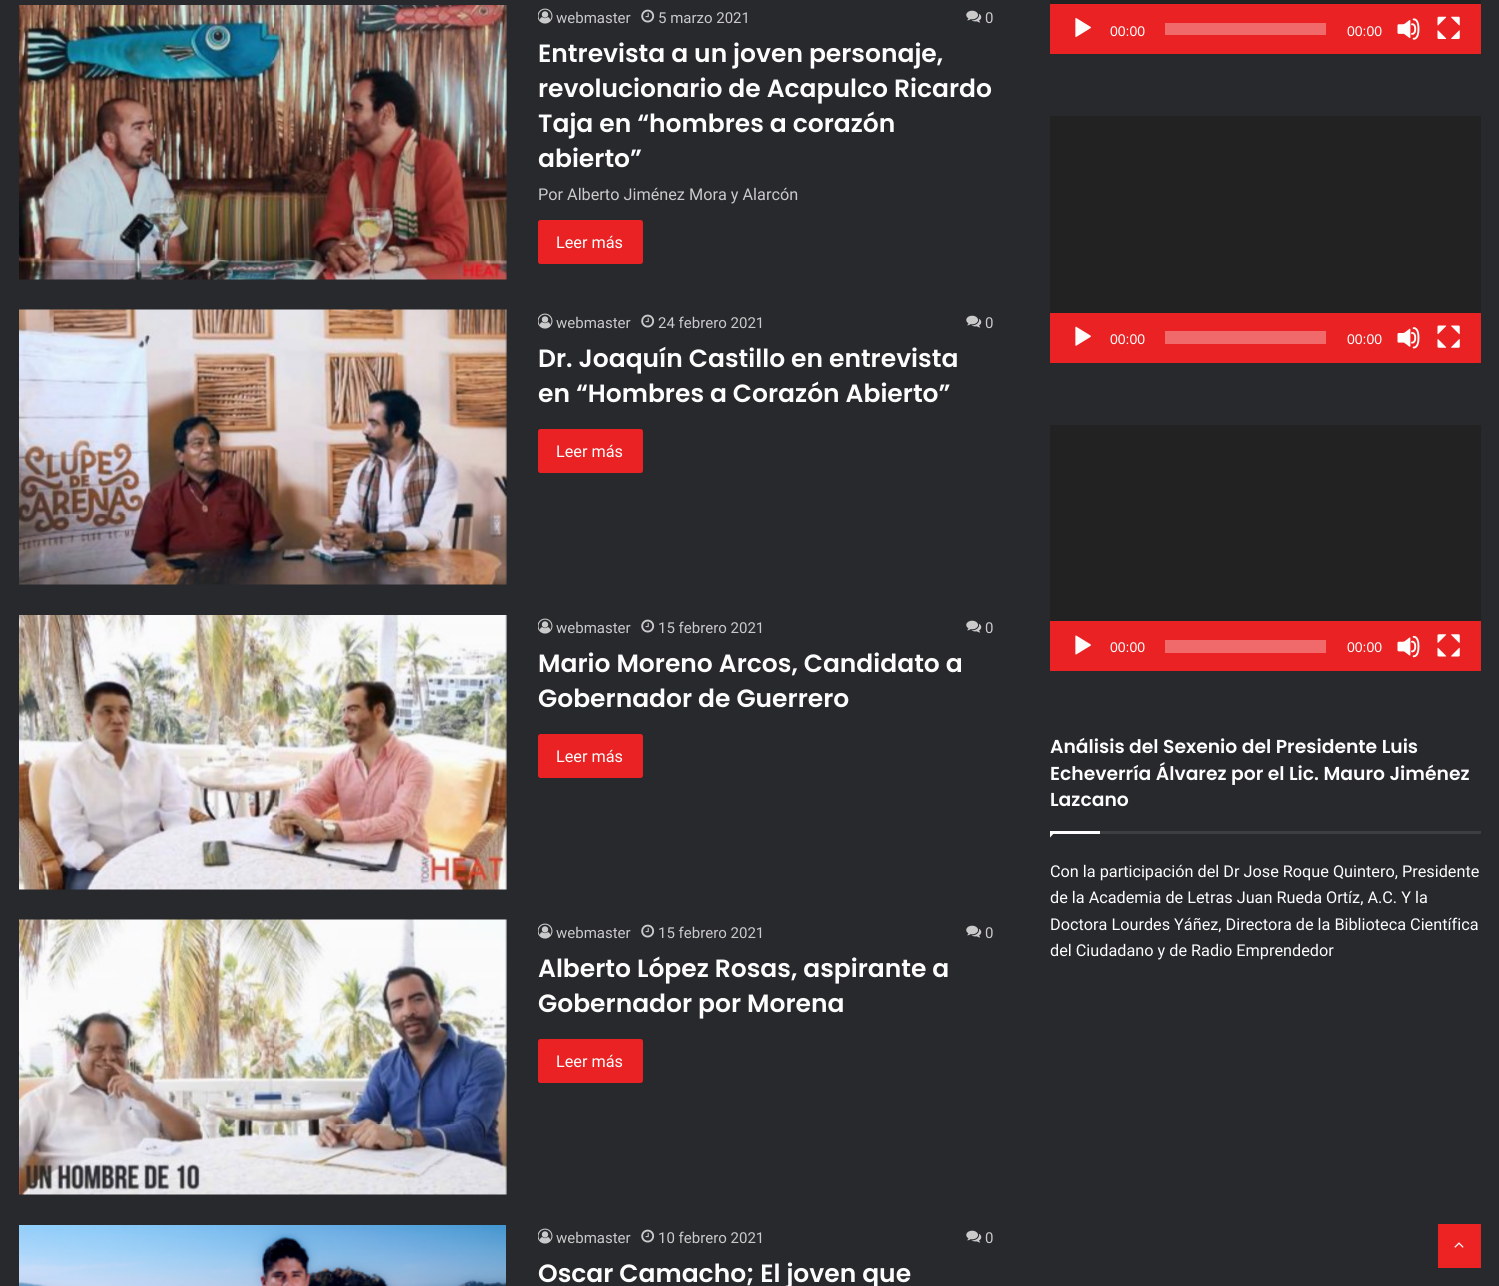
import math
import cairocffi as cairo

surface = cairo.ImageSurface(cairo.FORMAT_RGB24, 1499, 1286)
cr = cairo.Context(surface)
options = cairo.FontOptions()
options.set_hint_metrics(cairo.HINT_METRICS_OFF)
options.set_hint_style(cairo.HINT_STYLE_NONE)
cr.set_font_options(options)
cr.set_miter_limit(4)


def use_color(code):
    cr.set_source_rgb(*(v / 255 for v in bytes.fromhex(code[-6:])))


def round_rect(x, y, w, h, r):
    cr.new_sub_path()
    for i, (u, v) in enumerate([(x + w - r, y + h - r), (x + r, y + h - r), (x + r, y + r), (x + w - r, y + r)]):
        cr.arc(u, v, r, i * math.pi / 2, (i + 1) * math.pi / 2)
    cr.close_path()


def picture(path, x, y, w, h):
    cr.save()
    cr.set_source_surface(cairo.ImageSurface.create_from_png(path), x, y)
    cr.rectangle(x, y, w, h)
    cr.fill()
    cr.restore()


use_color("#27292d")
cr.paint()
picture("img1.png", 19, 5, 488, 275)
picture("img2.png", 538, 8, 15, 16)
cr.select_font_face("Roboto")
cr.set_font_size(15)
use_color("#cacaca")
cr.move_to(556, 23)
cr.show_text("webmaster")
picture("img3.png", 641, 9, 14, 14)
cr.move_to(658, 23)
cr.show_text("5 marzo 2021")
picture("img4.png", 966, 10, 16, 13)
cr.move_to(985, 23)
cr.show_text("0")
cr.select_font_face("Poppins SemiBold")
cr.set_font_size(25)
use_color("#fdfdfd")
cr.move_to(538, 62)
cr.show_text("Entrevista a un joven personaje,")
cr.move_to(538, 97)
cr.show_text("revolucionario de Acapulco Ricardo")
cr.move_to(538, 132)
cr.show_text("Taja en “hombres a corazón")
cr.move_to(538, 167)
cr.show_text("abierto”")
cr.select_font_face("Roboto")
cr.set_font_size(16.25)
use_color("#cacaca")
cr.move_to(538, 200)
cr.show_text("Por Alberto Jiménez Mora y Alarcón")
use_color("#ea2223")
round_rect(538, 220, 105, 44, 2.5)
cr.fill()
use_color("#fdfdfd")
cr.move_to(556, 248)
cr.show_text("Leer más")
picture("img5.png", 19, 309, 488, 276)
picture("img2.png", 538, 313, 15, 16)
cr.set_font_size(15)
use_color("#cacaca")
cr.move_to(556, 328)
cr.show_text("webmaster")
picture("img3.png", 641, 314, 14, 14)
cr.move_to(658, 328)
cr.show_text("24 febrero 2021")
picture("img4.png", 966, 315, 16, 13)
cr.move_to(985, 328)
cr.show_text("0")
cr.select_font_face("Poppins SemiBold")
cr.set_font_size(25)
use_color("#fdfdfd")
cr.move_to(538, 367)
cr.show_text("Dr. Joaquín Castillo en entrevista")
cr.move_to(538, 402)
cr.show_text("en “Hombres a Corazón Abierto”")
use_color("#ea2223")
round_rect(538, 429, 105, 44, 2.5)
cr.fill()
cr.select_font_face("Roboto")
cr.set_font_size(16.25)
use_color("#fdfdfd")
cr.move_to(556, 457)
cr.show_text("Leer más")
picture("img6.png", 19, 615, 488, 275)
picture("img2.png", 538, 618, 15, 16)
cr.set_font_size(15)
use_color("#cacaca")
cr.move_to(556, 633)
cr.show_text("webmaster")
picture("img3.png", 641, 619, 14, 14)
cr.move_to(658, 633)
cr.show_text("15 febrero 2021")
picture("img4.png", 966, 620, 16, 13)
cr.move_to(985, 633)
cr.show_text("0")
cr.select_font_face("Poppins SemiBold")
cr.set_font_size(25)
use_color("#fdfdfd")
cr.move_to(538, 672)
cr.show_text("Mario Moreno Arcos, Candidato a")
cr.move_to(538, 707)
cr.show_text("Gobernador de Guerrero")
use_color("#ea2223")
round_rect(538, 734, 105, 44, 2.5)
cr.fill()
cr.select_font_face("Roboto")
cr.set_font_size(16.25)
use_color("#fdfdfd")
cr.move_to(556, 762)
cr.show_text("Leer más")
picture("img7.png", 19, 919, 488, 276)
picture("img2.png", 538, 923, 15, 16)
cr.set_font_size(15)
use_color("#cacaca")
cr.move_to(556, 938)
cr.show_text("webmaster")
picture("img3.png", 641, 924, 14, 14)
cr.move_to(658, 938)
cr.show_text("15 febrero 2021")
picture("img4.png", 966, 925, 16, 13)
cr.move_to(985, 938)
cr.show_text("0")
cr.select_font_face("Poppins SemiBold")
cr.set_font_size(25)
use_color("#fdfdfd")
cr.move_to(538, 977)
cr.show_text("Alberto López Rosas, aspirante a")
cr.move_to(538, 1012)
cr.show_text("Gobernador por Morena")
use_color("#ea2223")
round_rect(538, 1039, 105, 44, 2.5)
cr.fill()
cr.select_font_face("Roboto")
cr.set_font_size(16.25)
use_color("#fdfdfd")
cr.move_to(556, 1067)
cr.show_text("Leer más")
picture("img8.png", 19, 1225, 487, 61)
picture("img2.png", 538, 1228, 15, 16)
cr.set_font_size(15)
use_color("#cacaca")
cr.move_to(556, 1243)
cr.show_text("webmaster")
picture("img3.png", 641, 1229, 14, 14)
cr.move_to(658, 1243)
cr.show_text("10 febrero 2021")
picture("img4.png", 966, 1230, 16, 13)
cr.move_to(985, 1243)
cr.show_text("0")
cr.select_font_face("Poppins SemiBold")
cr.set_font_size(25)
use_color("#fdfdfd")
cr.move_to(538, 1282)
cr.show_text("Oscar Camacho; El joven que")
use_color("#222222")
cr.rectangle(1050, 0, 431, 4)
cr.fill()
use_color("#ea2223")
cr.rectangle(1050, 4, 431, 50)
cr.fill()
picture("img9.png", 1075, 18, 16, 19)
cr.select_font_face("Liberation Sans")
cr.set_font_size(14)
use_color("#fdfdfd")
cr.move_to(1110, 36)
cr.show_text("00:00")
use_color("#f06a6b")
cr.rectangle(1165, 23, 161, 12)
cr.fill()
use_color("#fdfdfd")
cr.move_to(1347, 36)
cr.show_text("00:00")
picture("img10.png", 1397, 18, 23, 22)
picture("img11.png", 1437, 16, 23, 23)
use_color("#222222")
cr.rectangle(1050, 116, 431, 197)
cr.fill()
use_color("#ea2223")
cr.rectangle(1050, 313, 431, 50)
cr.fill()
picture("img12.png", 1075, 326, 16, 20)
use_color("#fdfdfd")
cr.move_to(1110, 344)
cr.show_text("00:00")
use_color("#f06a6b")
cr.rectangle(1165, 331, 161, 13)
cr.fill()
use_color("#fdfdfd")
cr.move_to(1347, 344)
cr.show_text("00:00")
picture("img13.png", 1397, 327, 23, 22)
picture("img14.png", 1437, 325, 23, 23)
use_color("#222222")
cr.rectangle(1050, 425, 431, 196)
cr.fill()
use_color("#ea2223")
cr.rectangle(1050, 621, 431, 50)
cr.fill()
picture("img15.png", 1075, 635, 16, 20)
use_color("#fdfdfd")
cr.move_to(1110, 652)
cr.show_text("00:00")
use_color("#f06a6b")
cr.rectangle(1165, 640, 161, 13)
cr.fill()
use_color("#fdfdfd")
cr.move_to(1347, 652)
cr.show_text("00:00")
picture("img16.png", 1397, 635, 23, 23)
picture("img17.png", 1437, 634, 23, 23)
use_color("#3c3e42")
cr.rectangle(1100, 831, 381, 3)
cr.fill()
cr.select_font_face("Poppins SemiBold")
cr.set_font_size(18.75)
use_color("#fdfdfd")
cr.move_to(1050, 753)
cr.show_text("Análisis del Sexenio del Presidente Luis")
cr.move_to(1050, 780)
cr.show_text("Echeverría Álvarez por el Lic. Mauro Jiménez")
cr.move_to(1050, 806)
cr.show_text("Lazcano")
cr.new_path()
cr.move_to(1050, 831)
cr.line_to(1056, 831)
cr.line_to(1050, 837.5)
cr.close_path()
cr.fill()
cr.rectangle(1050, 831, 50, 3)
cr.fill()
cr.select_font_face("Roboto")
cr.set_font_size(16.25)
cr.move_to(1050, 877)
cr.show_text("Con la participación del Dr Jose Roque Quintero, Presidente")
cr.move_to(1050, 903)
cr.show_text("de la Academia de Letras Juan Rueda Ortíz, A.C. Y la")
cr.move_to(1050, 930)
cr.show_text("Doctora Lourdes Yáñez, Directora de la Biblioteca Científica")
cr.move_to(1050, 956)
cr.show_text("del Ciudadano y de Radio Emprendedor")
use_color("#ec2223")
cr.rectangle(1438, 1224, 43, 44)
cr.fill()
picture("img18.png", 1454, 1242, 10, 6)
surface.write_to_png("result.png")
